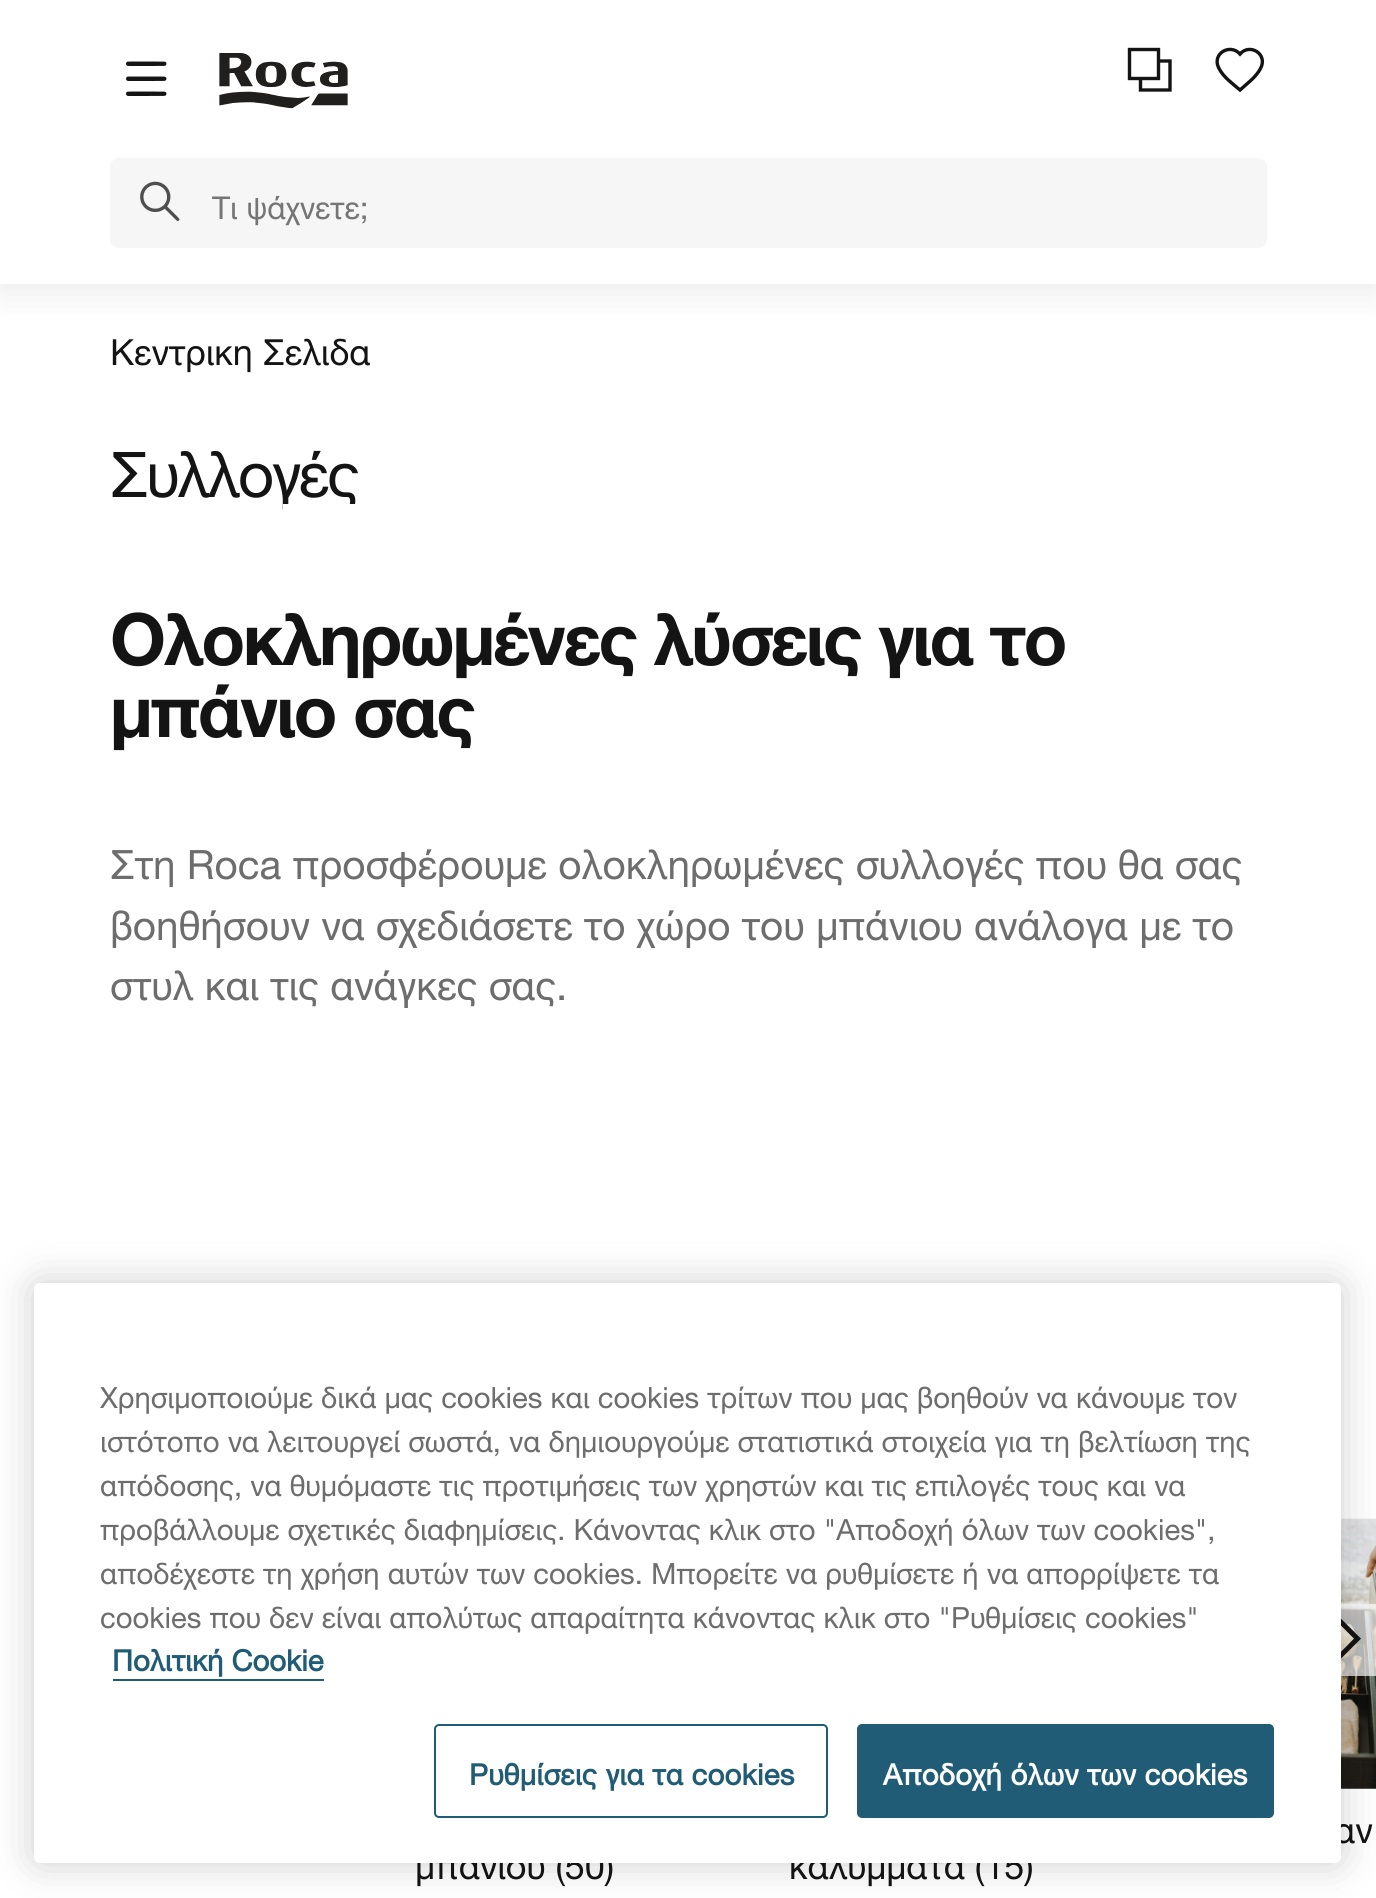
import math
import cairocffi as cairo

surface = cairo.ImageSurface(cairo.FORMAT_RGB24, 1376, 1898)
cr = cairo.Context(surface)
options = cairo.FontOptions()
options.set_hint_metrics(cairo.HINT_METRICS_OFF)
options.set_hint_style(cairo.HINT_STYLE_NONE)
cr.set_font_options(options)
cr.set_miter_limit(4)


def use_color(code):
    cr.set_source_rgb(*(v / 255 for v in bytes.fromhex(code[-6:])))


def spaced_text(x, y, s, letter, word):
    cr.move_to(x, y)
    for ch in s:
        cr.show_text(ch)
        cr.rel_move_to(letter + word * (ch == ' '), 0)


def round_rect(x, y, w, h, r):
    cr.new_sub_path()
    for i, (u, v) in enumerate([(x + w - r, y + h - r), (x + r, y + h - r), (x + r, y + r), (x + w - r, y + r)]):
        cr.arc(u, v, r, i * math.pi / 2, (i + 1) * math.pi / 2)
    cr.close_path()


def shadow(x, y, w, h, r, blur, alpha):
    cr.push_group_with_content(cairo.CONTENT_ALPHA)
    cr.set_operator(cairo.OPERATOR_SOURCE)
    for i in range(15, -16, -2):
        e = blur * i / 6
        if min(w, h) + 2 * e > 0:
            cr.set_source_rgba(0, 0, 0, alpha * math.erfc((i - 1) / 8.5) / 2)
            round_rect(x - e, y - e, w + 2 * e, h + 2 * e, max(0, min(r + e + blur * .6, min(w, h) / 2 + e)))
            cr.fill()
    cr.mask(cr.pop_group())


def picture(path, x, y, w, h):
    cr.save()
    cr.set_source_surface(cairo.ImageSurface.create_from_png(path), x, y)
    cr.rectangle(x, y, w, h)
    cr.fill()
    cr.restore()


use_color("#ffffff")
cr.paint()
picture("img1.png", 126, 61, 41, 35)
picture("img2.png", 219, 53, 129, 56)
cr.new_path()
cr.move_to(1158.5, 49.5)
cr.line_to(1129.5, 49.5)
cr.line_to(1129.5, 78.5)
cr.line_to(1158.5, 78.5)
cr.close_path()
cr.move_to(1158.5, 61)
cr.line_to(1170, 61)
cr.line_to(1170, 90)
cr.line_to(1140.5, 90)
cr.line_to(1140.5, 78.5)
use_color("#141414")
cr.set_line_width(3.4)
cr.set_line_cap(cairo.LINE_CAP_ROUND)
cr.stroke()
cr.new_path()
cr.move_to(1240, 90)
cr.curve_to(1232.5, 83.5, 1223, 77, 1218.5, 67.5)
cr.curve_to(1212, 53.5, 1230, 43, 1240, 54)
cr.curve_to(1249.5, 43, 1267.5, 53.5, 1261, 67.5)
cr.curve_to(1256.5, 77, 1247, 83.5, 1240, 90)
cr.close_path()
cr.stroke()
use_color("#f6f6f6")
round_rect(110, 158, 1157, 90, 9)
cr.fill()
picture("img3.png", 140, 181, 40, 40)
cr.save()
cr.set_fill_rule(cairo.FILL_RULE_EVEN_ODD)
cr.new_path()
cr.move_to(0, 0)
cr.line_to(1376, 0)
cr.line_to(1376, 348)
cr.line_to(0, 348)
cr.close_path()
cr.move_to(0, 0)
cr.line_to(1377, 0)
cr.line_to(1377, 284)
cr.line_to(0, 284)
cr.close_path()
cr.clip()
use_color("#000000")
shadow(0, 9, 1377, 284, 0, 18, 0.08)
cr.restore()
cr.save()
cr.rectangle(212, 173, 1003, 61)
cr.clip()
cr.select_font_face("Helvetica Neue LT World")
cr.set_font_size(31.5)
use_color("#757575")
cr.move_to(212, 219)
cr.show_text("Τι ψάχνετε;")
cr.restore()
cr.select_font_face("Helvetica Neue LT World")
cr.set_font_size(36)
use_color("#141414")
cr.move_to(110, 365)
cr.show_text("Κεντρικη Σελιδα")
cr.set_font_size(63)
spaced_text(110, 497, "Συλλογές", -2.25, 0)
use_color("#ffffff")
cr.rectangle(283, 504, 73, 6)
cr.fill()
cr.select_font_face("Helvetica Neue LT World", cairo.FONT_SLANT_NORMAL, cairo.FONT_WEIGHT_BOLD)
cr.set_font_size(72)
use_color("#141414")
spaced_text(110, 665, "Ολοκληρωμένες λύσεις για το", -2.25, 0)
spaced_text(110, 737, "μπάνιο σας", -2.25, 0)
cr.select_font_face("Helvetica Neue LT World")
cr.set_font_size(40.5)
use_color("#6d6d6d")
cr.move_to(110, 879)
cr.show_text("Στη Roca προσφέρουμε ολοκληρωμένες συλλογές που θα σας")
cr.move_to(110, 940)
cr.show_text("βοηθήσουν να σχεδιάσετε το χώρο του μπάνιου ανάλογα με το")
cr.move_to(110, 1000)
cr.show_text("στυλ και τις ανάγκες σας.")
picture("img5.png", 1341, 1518, 35, 271)
cr.set_source_rgba(1, 1, 1, 0.7)
cr.rectangle(1341, 1604, 35, 72)
cr.fill()
picture("img4.png", 1341, 1618, 20, 41)
cr.set_font_size(36)
use_color("#141414")
cr.move_to(1334, 1843)
cr.show_text("αν")
cr.move_to(415, 1879)
cr.show_text("μπανιου (50)")
cr.move_to(789, 1879)
cr.show_text("καλύμματα (15)")
use_color("#000000")
shadow(34, 1283, 1307, 580, 6, 20, 0.2)
use_color("#ffffff")
round_rect(34, 1283, 1307, 580, 6)
cr.fill()
cr.set_font_size(29.25)
use_color("#6d6d6d")
cr.move_to(100, 1408)
cr.show_text("Χρησιμοποιούμε δικά μας cookies και cookies τρίτων που μας βοηθούν να κάνουμε τον")
cr.move_to(100, 1452)
cr.show_text("ιστότοπο να λειτουργεί σωστά, να δημιουργούμε στατιστικά στοιχεία για τη βελτίωση της")
cr.move_to(100, 1496)
cr.show_text("απόδοσης, να θυμόμαστε τις προτιμήσεις των χρηστών και τις επιλογές τους και να")
cr.move_to(100, 1540)
cr.show_text("προβάλλουμε σχετικές διαφημίσεις. Κάνοντας κλικ στο \"Αποδοχή όλων των cookies\",")
cr.move_to(100, 1584)
cr.show_text("αποδέχεστε τη χρήση αυτών των cookies. Μπορείτε να ρυθμίσετε ή να απορρίψετε τα")
cr.move_to(100, 1628)
cr.show_text("cookies που δεν είναι απολύτως απαραίτητα κάνοντας κλικ στο \"Ρυθμίσεις cookies\"")
cr.select_font_face("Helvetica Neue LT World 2", cairo.FONT_SLANT_NORMAL, cairo.FONT_WEIGHT_BOLD)
use_color("#205c76")
cr.move_to(112, 1671)
cr.show_text("Πολιτική Cookie")
cr.rectangle(113, 1679, 211, 2)
cr.fill()
round_rect(435, 1725, 392, 92, 4)
cr.set_line_width(2)
cr.set_line_cap(cairo.LINE_CAP_BUTT)
cr.stroke()
spaced_text(469, 1785, "Ρυθμίσεις για τα cookies", 0.25, 0)
round_rect(858, 1725, 415, 92, 4)
cr.fill_preserve()
cr.stroke()
use_color("#ffffff")
spaced_text(883, 1785, "Αποδοχή όλων των cookies", 0.25, 0)
surface.write_to_png("result.png")
